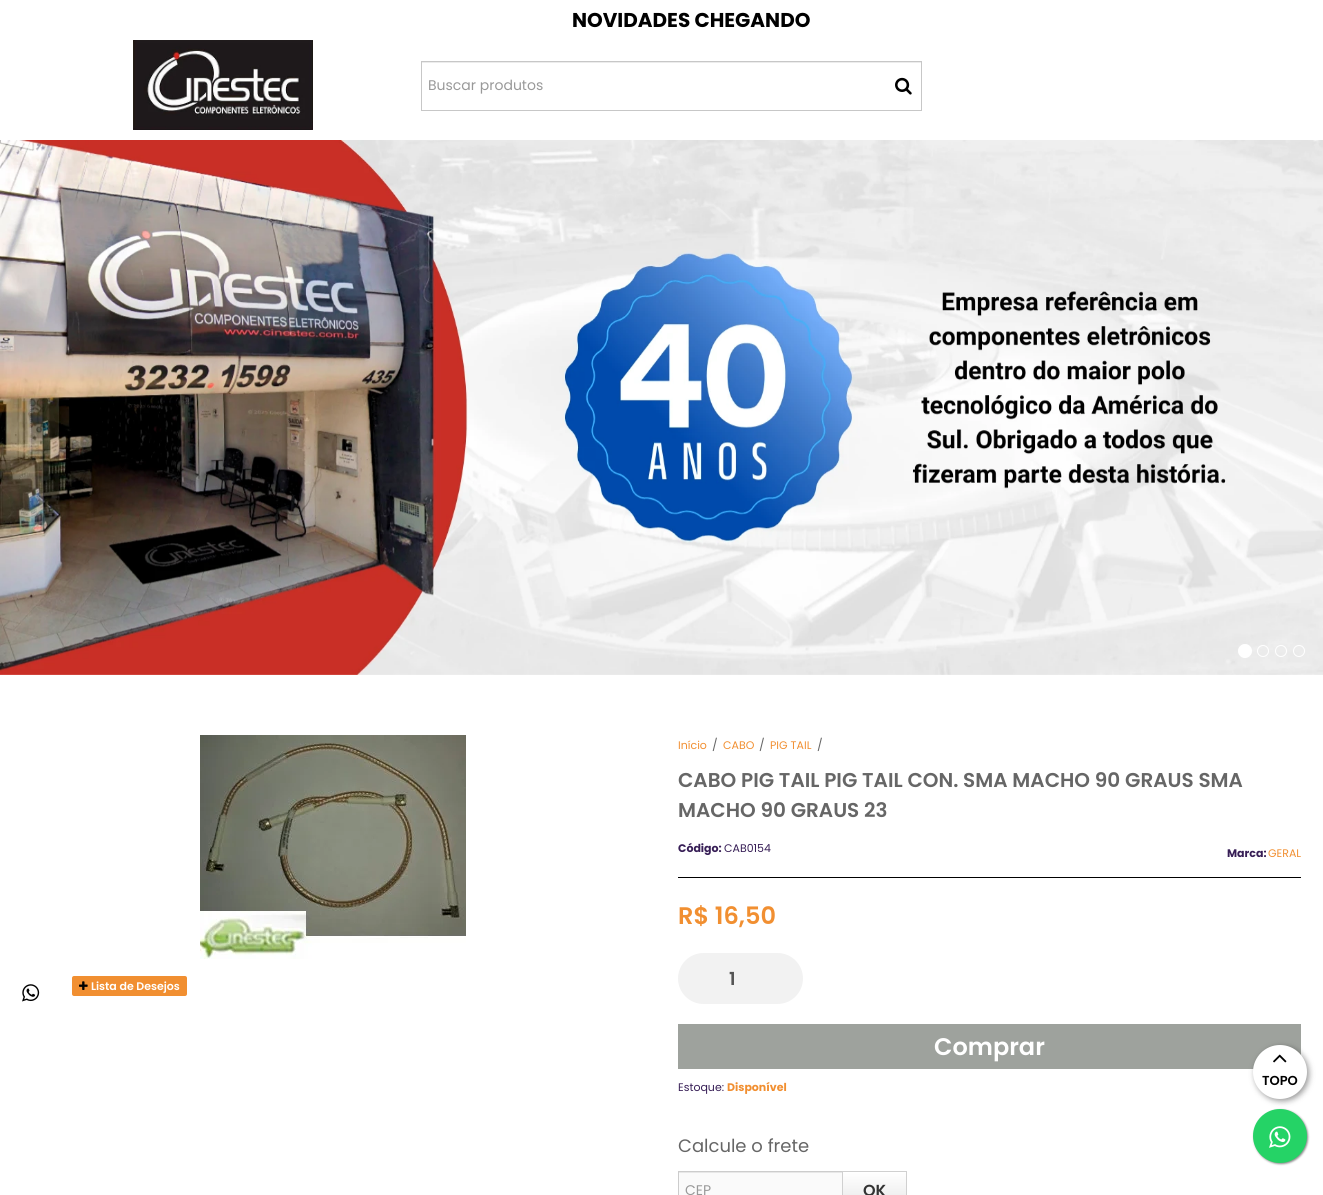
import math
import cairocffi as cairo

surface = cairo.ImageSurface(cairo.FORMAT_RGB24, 1323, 1195)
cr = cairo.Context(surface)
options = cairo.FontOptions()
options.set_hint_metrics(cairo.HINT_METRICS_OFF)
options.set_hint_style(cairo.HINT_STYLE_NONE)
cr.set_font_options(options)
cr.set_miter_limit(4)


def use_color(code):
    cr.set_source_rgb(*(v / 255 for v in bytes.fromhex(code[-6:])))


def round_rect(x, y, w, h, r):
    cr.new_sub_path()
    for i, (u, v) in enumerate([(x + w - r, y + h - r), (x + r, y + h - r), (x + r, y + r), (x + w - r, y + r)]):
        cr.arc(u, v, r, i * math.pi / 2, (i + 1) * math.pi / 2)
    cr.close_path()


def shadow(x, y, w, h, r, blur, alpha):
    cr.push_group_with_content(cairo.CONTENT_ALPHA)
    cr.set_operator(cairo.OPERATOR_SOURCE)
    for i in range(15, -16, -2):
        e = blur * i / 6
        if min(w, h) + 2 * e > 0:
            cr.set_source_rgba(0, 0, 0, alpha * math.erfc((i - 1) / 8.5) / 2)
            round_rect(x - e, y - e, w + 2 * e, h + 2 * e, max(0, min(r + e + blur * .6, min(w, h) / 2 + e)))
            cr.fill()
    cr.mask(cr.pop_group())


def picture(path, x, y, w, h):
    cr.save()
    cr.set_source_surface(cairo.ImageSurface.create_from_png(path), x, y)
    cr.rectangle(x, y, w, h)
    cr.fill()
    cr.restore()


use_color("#ffffff")
cr.paint()
cr.select_font_face("Poppins", cairo.FONT_SLANT_NORMAL, cairo.FONT_WEIGHT_BOLD)
cr.set_font_size(20)
use_color("#000000")
cr.move_to(572, 27)
cr.show_text("NOVIDADES CHEGANDO")
picture("img1.png", 133, 40, 180, 90)
use_color("#ececec")
cr.rectangle(422, 62, 499, 1)
cr.fill()
cr.rectangle(421.5, 61.5, 500, 49)
use_color("#c7c7c7")
cr.set_line_width(1)
cr.stroke()
cr.select_font_face("Poppins")
cr.set_font_size(14)
use_color("#999999")
cr.move_to(428, 90)
cr.show_text("Buscar produtos")
picture("img2.png", 895, 77, 17, 18)
picture("img3.png", 0, 140, 1323, 535)
use_color("#ffffff")
cr.arc(1245, 651, 6.5, 0, 2 * math.pi)
cr.fill_preserve()
cr.stroke()
cr.arc(1263, 651, 5.5, 0, 2 * math.pi)
cr.stroke()
cr.arc(1281, 651, 5.5, 0, 2 * math.pi)
cr.stroke()
cr.arc(1299, 651, 5.5, 0, 2 * math.pi)
cr.stroke()
picture("img4.png", 200, 735, 266, 224)
picture("img5.png", 22, 984, 18, 18)
use_color("#f18f31")
round_rect(72, 976, 115, 20, 2)
cr.fill()
picture("img6.png", 79, 981, 9, 9)
cr.select_font_face("Poppins SemiBold")
cr.set_font_size(11)
use_color("#ffffff")
cr.move_to(91, 990)
cr.show_text("Lista de Desejos")
cr.select_font_face("Poppins")
use_color("#f18f31")
cr.move_to(678, 749)
cr.show_text("Início")
cr.set_font_size(12)
use_color("#666666")
cr.move_to(712, 749)
cr.show_text("/")
cr.set_font_size(11)
use_color("#f18f31")
cr.move_to(723, 749)
cr.show_text("CABO")
cr.set_font_size(12)
use_color("#666666")
cr.move_to(759, 749)
cr.show_text("/")
cr.set_font_size(11)
use_color("#f18f31")
cr.move_to(770, 749)
cr.show_text("PIG TAIL")
cr.set_font_size(12)
use_color("#666666")
cr.move_to(817, 749)
cr.show_text("/")
cr.select_font_face("Poppins SemiBold")
cr.set_font_size(20)
cr.move_to(678, 787)
cr.show_text("CABO PIG TAIL PIG TAIL CON. SMA MACHO 90 GRAUS SMA")
cr.move_to(678, 817)
cr.show_text("MACHO 90 GRAUS 23")
use_color("#000000")
cr.rectangle(678, 877, 623, 1)
cr.fill()
cr.select_font_face("Poppins", cairo.FONT_SLANT_NORMAL, cairo.FONT_WEIGHT_BOLD)
cr.set_font_size(11)
use_color("#371e56")
cr.move_to(678, 852)
cr.show_text("Código:")
cr.select_font_face("Poppins")
cr.move_to(724, 852)
cr.show_text("CAB0154")
cr.select_font_face("Poppins", cairo.FONT_SLANT_NORMAL, cairo.FONT_WEIGHT_BOLD)
cr.move_to(1227, 857)
cr.show_text("Marca:")
cr.select_font_face("Poppins")
use_color("#f18f31")
cr.move_to(1268, 857)
cr.show_text("GERAL")
cr.select_font_face("Poppins SemiBold")
cr.set_font_size(24)
cr.move_to(678, 924)
cr.show_text("R$ 16,50")
use_color("#f2f2f2")
round_rect(678, 953, 125, 51, 25.5)
cr.fill()
cr.set_font_size(18)
use_color("#555555")
cr.move_to(729, 985)
cr.show_text("1")
use_color("#9ea29d")
cr.rectangle(678, 1024, 623, 45)
cr.fill()
cr.set_font_size(24)
use_color("#ffffff")
cr.move_to(934, 1055)
cr.show_text("Comprar")
cr.select_font_face("Poppins")
cr.set_font_size(11)
use_color("#371e56")
cr.move_to(678, 1091)
cr.show_text("Estoque:")
cr.select_font_face("Poppins", cairo.FONT_SLANT_NORMAL, cairo.FONT_WEIGHT_BOLD)
use_color("#f18f31")
cr.move_to(727, 1091)
cr.show_text("Disponível")
cr.select_font_face("Poppins")
cr.set_font_size(18)
use_color("#666666")
cr.move_to(678, 1152)
cr.show_text("Calcule o frete")
use_color("#fafafa")
cr.rectangle(679, 1173, 163, 22)
cr.fill()
use_color("#e7e7e7")
cr.rectangle(679, 1172, 163, 1)
cr.fill()
cr.rectangle(678.5, 1171.5, 183, 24)
use_color("#cccccc")
cr.stroke()
cr.set_font_size(14)
use_color("#999999")
cr.move_to(685, 1195)
cr.show_text("CEP")
gradient = cairo.LinearGradient(875, 1172, 875, 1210)
gradient.add_color_stop_rgba(0, 1, 1, 1, 1)
gradient.add_color_stop_rgba(1, 0.902, 0.902, 0.902, 1)
cr.set_source(gradient)
cr.rectangle(843, 1172, 63, 23)
cr.fill()
cr.rectangle(842.5, 1171.5, 64, 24)
use_color("#d0d0d0")
cr.stroke()
cr.select_font_face("Poppins SemiBold")
cr.set_font_size(16)
use_color("#333333")
cr.move_to(863, 1196)
cr.show_text("OK")
use_color("#888888")
shadow(1254, 1110, 54, 54, 27, 1, 1)
use_color("#000000")
shadow(1255, 1047, 54, 54, 27, 3, 0.4)
use_color("#25d366")
cr.arc(1280, 1136, 27, 0, 2 * math.pi)
cr.fill()
picture("img7.png", 1269, 1126, 22, 22)
use_color("#ffffff")
cr.arc(1280, 1072, 27, 0, 2 * math.pi)
cr.fill()
picture("img8.png", 1273, 1054, 14, 9)
cr.set_font_size(13)
use_color("#000000")
cr.move_to(1262, 1085)
cr.show_text("TOPO")
surface.write_to_png("result.png")
